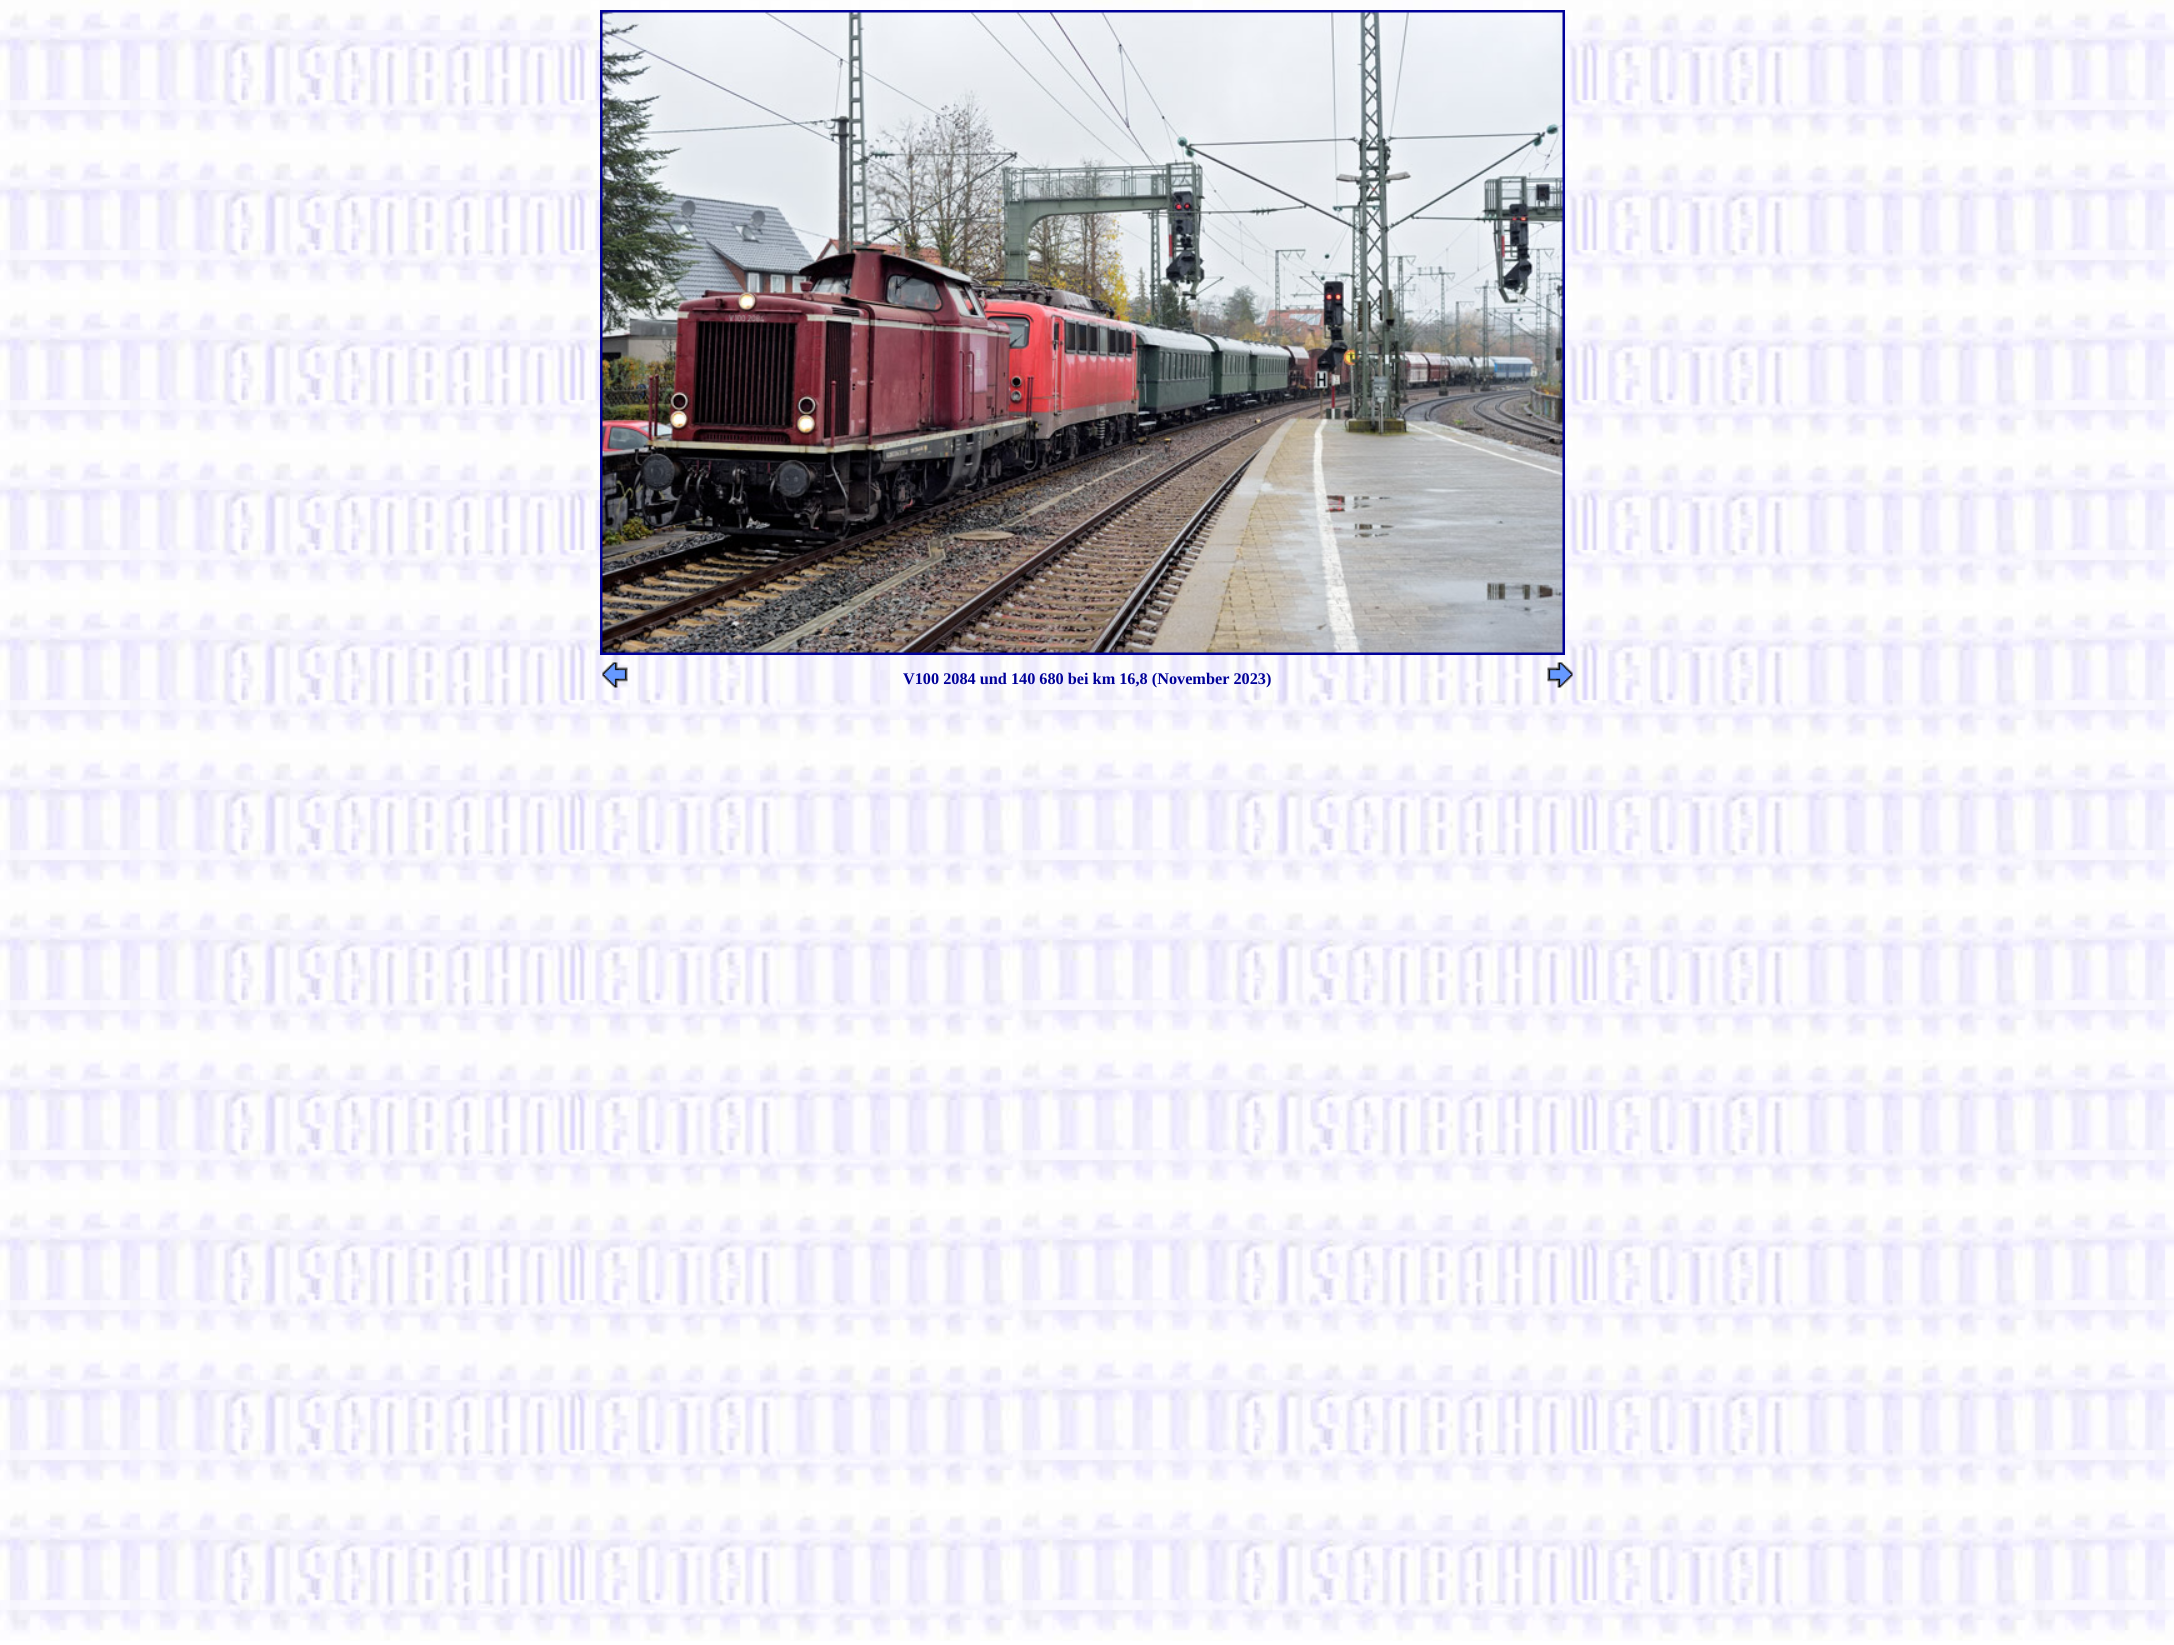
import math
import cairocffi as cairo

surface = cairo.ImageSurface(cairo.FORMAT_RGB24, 2174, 1645)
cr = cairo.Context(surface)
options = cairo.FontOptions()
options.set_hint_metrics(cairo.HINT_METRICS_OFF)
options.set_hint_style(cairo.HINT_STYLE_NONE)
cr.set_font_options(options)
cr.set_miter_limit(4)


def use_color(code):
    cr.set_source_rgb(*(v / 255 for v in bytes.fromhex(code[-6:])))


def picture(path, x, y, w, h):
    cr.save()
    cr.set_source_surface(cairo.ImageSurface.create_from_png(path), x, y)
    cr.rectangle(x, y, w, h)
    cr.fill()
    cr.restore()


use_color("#ffffff")
cr.paint()
picture("img1.png", 0, 0, 2174, 1641)
cr.rectangle(601.5, 11.5, 962, 642)
use_color("#000099")
cr.set_line_width(3)
cr.stroke()
picture("img2.png", 602, 12, 961, 641)
picture("img3.png", 602, 662, 26, 26)
cr.select_font_face("Liberation Serif", cairo.FONT_SLANT_NORMAL, cairo.FONT_WEIGHT_BOLD)
cr.set_font_size(16.25)
cr.move_to(903, 684)
cr.show_text("V100 2084 und 140 680 bei km 16,8 (November 2023)")
picture("img4.png", 1547, 662, 26, 26)
surface.write_to_png("result.png")
